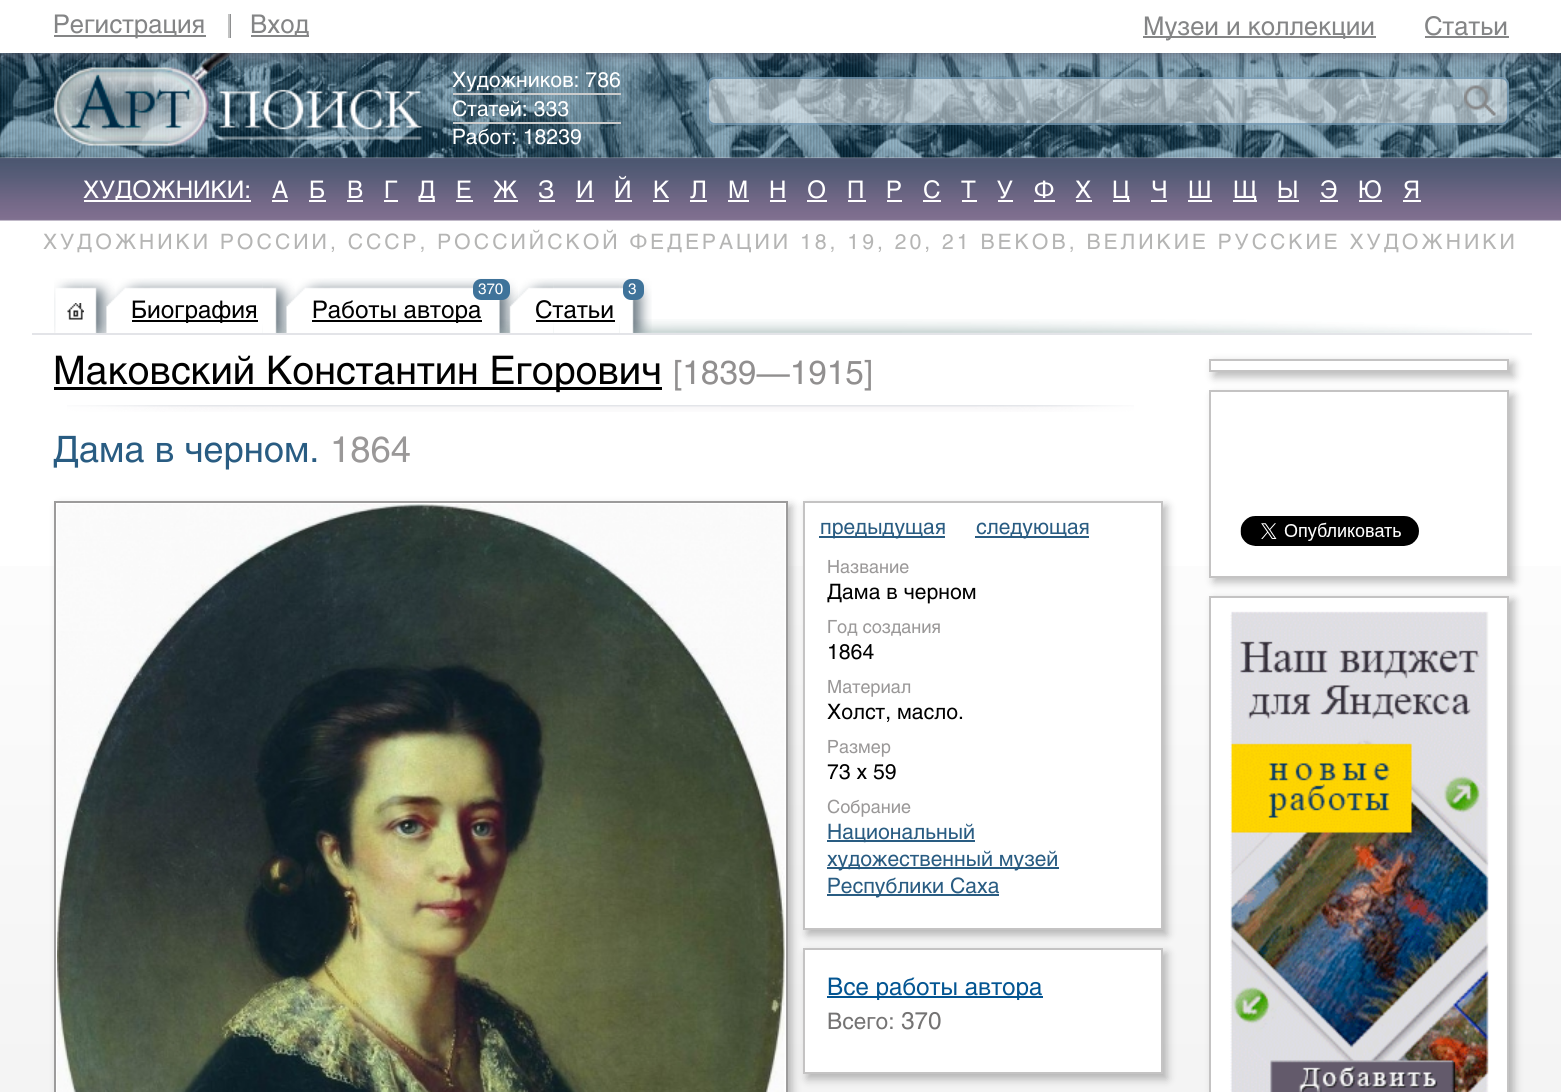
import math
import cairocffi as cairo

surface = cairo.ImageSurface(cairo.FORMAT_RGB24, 1561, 1092)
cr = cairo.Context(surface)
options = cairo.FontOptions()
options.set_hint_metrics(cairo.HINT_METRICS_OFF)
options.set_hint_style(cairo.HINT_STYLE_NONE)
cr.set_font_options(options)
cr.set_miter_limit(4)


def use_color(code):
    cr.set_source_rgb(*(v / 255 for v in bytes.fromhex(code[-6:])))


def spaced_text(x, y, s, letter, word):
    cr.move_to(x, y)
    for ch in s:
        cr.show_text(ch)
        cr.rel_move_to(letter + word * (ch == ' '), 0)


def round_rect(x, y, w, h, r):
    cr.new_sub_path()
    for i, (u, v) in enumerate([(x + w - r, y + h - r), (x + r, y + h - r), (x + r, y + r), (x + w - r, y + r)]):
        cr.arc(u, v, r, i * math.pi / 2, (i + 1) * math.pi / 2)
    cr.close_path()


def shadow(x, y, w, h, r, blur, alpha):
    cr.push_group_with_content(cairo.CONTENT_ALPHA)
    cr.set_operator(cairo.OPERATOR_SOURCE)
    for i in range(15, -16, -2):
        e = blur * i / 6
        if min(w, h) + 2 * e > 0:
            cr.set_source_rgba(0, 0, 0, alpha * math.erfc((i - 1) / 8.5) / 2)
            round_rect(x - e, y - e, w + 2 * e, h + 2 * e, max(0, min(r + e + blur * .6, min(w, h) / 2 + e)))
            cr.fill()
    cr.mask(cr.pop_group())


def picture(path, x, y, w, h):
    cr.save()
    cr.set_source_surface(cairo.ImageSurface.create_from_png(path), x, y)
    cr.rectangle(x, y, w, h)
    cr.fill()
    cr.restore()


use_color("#ffffff")
cr.paint()
picture("img5.png", 0, 157, 1561, 64)
picture("img1.png", 0, 53, 1561, 105)
picture("img2.png", 0, 53, 1561, 105)
picture("img3.png", 54, 53, 369, 93)
use_color("#4e4658")
shadow(0, 0, 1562, 53, 0, 7.5, 0.75)
use_color("#ffffff")
cr.rectangle(0, 0, 1561, 53)
cr.fill()
use_color("#848586")
cr.rectangle(54, 35, 152, 2)
cr.fill()
cr.select_font_face("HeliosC")
cr.set_font_size(25.5)
cr.move_to(53, 33)
cr.show_text("Регистрация")
use_color("#8e8f90")
cr.rectangle(230, 14, 1, 24)
cr.fill()
use_color("#c2c3c3")
cr.rectangle(228, 14, 2, 24)
cr.fill()
use_color("#848586")
cr.rectangle(251, 35, 58, 2)
cr.fill()
cr.move_to(250, 33)
cr.show_text("Вход")
cr.rectangle(1143, 36, 233, 2)
cr.fill()
cr.move_to(1143, 35)
cr.show_text("Музеи и коллекции")
cr.move_to(1424, 35)
cr.show_text("Статьи")
cr.rectangle(1425, 36, 84, 2)
cr.fill()
cr.set_font_size(21)
use_color("#ffffff")
cr.move_to(452, 87)
cr.show_text("Художников: 786")
use_color("#cccccc")
cr.rectangle(453, 93, 168, 2)
cr.fill()
use_color("#ffffff")
cr.move_to(452, 116)
cr.show_text("Статей: 333")
use_color("#cccccc")
cr.rectangle(453, 122, 168, 2)
cr.fill()
use_color("#ffffff")
cr.move_to(452, 144)
cr.show_text("Работ: 18239")
cr.set_source_rgba(1, 1, 1, 0.5)
round_rect(707, 77, 802, 48, 8)
cr.fill()
round_rect(708, 78, 800, 46, 7)
cr.set_source_rgba(0.227, 0.439, 0.596, 0.5)
cr.stroke()
picture("img4.png", 1464, 85, 32, 31)
use_color("#ffffff")
cr.rectangle(84, 200, 167, 2)
cr.fill()
cr.set_font_size(24)
cr.move_to(83, 198)
cr.show_text("ХУДОЖНИКИ:")
cr.move_to(272, 198)
cr.show_text("А")
cr.rectangle(272, 200, 16, 2)
cr.fill()
cr.move_to(309, 198)
cr.show_text("Б")
cr.rectangle(309, 200, 17, 2)
cr.fill()
cr.move_to(347, 198)
cr.show_text("В")
cr.rectangle(347, 200, 16, 2)
cr.fill()
cr.move_to(384, 198)
cr.show_text("Г")
cr.rectangle(384, 200, 14, 2)
cr.fill()
cr.rectangle(419, 200, 16, 2)
cr.fill()
cr.move_to(418, 198)
cr.show_text("Д")
cr.move_to(456, 198)
cr.show_text("Е")
cr.rectangle(456, 200, 17, 2)
cr.fill()
cr.move_to(493, 198)
cr.show_text("Ж")
cr.rectangle(494, 200, 24, 2)
cr.fill()
cr.move_to(538, 198)
cr.show_text("З")
cr.rectangle(539, 200, 16, 2)
cr.fill()
cr.move_to(576, 198)
cr.show_text("И")
cr.rectangle(576, 200, 18, 2)
cr.fill()
cr.move_to(614, 198)
cr.show_text("Й")
cr.rectangle(615, 200, 17, 2)
cr.fill()
cr.move_to(653, 198)
cr.show_text("К")
cr.rectangle(653, 200, 16, 2)
cr.fill()
cr.move_to(690, 198)
cr.show_text("Л")
cr.rectangle(690, 200, 17, 2)
cr.fill()
cr.move_to(728, 198)
cr.show_text("М")
cr.rectangle(728, 200, 21, 2)
cr.fill()
cr.move_to(769, 198)
cr.show_text("Н")
cr.rectangle(770, 200, 16, 2)
cr.fill()
cr.move_to(807, 198)
cr.show_text("О")
cr.rectangle(807, 200, 20, 2)
cr.fill()
cr.move_to(847, 198)
cr.show_text("П")
cr.rectangle(848, 200, 18, 2)
cr.fill()
cr.move_to(886, 198)
cr.show_text("Р")
cr.rectangle(887, 200, 15, 2)
cr.fill()
cr.move_to(923, 198)
cr.show_text("С")
cr.rectangle(923, 200, 18, 2)
cr.fill()
cr.move_to(961, 198)
cr.show_text("Т")
cr.rectangle(962, 200, 15, 2)
cr.fill()
cr.move_to(997, 198)
cr.show_text("У")
cr.rectangle(998, 200, 15, 2)
cr.fill()
cr.move_to(1034, 198)
cr.show_text("Ф")
cr.rectangle(1034, 200, 21, 2)
cr.fill()
cr.move_to(1075, 198)
cr.show_text("Х")
cr.rectangle(1076, 200, 16, 2)
cr.fill()
cr.rectangle(1113, 200, 17, 2)
cr.fill()
cr.move_to(1112, 198)
cr.show_text("Ц")
cr.move_to(1151, 198)
cr.show_text("Ч")
cr.rectangle(1151, 200, 16, 2)
cr.fill()
cr.move_to(1188, 198)
cr.show_text("Ш")
cr.rectangle(1188, 200, 24, 2)
cr.fill()
cr.rectangle(1233, 200, 24, 2)
cr.fill()
cr.move_to(1233, 198)
cr.show_text("Щ")
cr.move_to(1277, 198)
cr.show_text("Ы")
cr.rectangle(1278, 200, 21, 2)
cr.fill()
cr.move_to(1320, 198)
cr.show_text("Э")
cr.rectangle(1320, 200, 18, 2)
cr.fill()
cr.move_to(1358, 198)
cr.show_text("Ю")
cr.rectangle(1359, 200, 23, 2)
cr.fill()
cr.move_to(1403, 198)
cr.show_text("Я")
cr.rectangle(1403, 200, 18, 2)
cr.fill()
cr.set_font_size(21)
use_color("#b5b5b4")
spaced_text(43, 249, "ХУДОЖНИКИ РОССИИ, СССР, РОССИЙСКОЙ ФЕДЕРАЦИИ 18, 19, 20, 21 ВЕКОВ, ВЕЛИКИЕ РУССКИЕ ХУДОЖНИКИ", 3, 0)
picture("img6.png", 82, 319, 1427, 14)
picture("img7.png", 78, 278, 5, 55)
picture("img8.png", 54, 278, 24, 55)
picture("img9.png", 82, 278, 33, 55)
picture("img10.png", 67, 303, 17, 17)
picture("img11.png", 150, 278, 113, 55)
picture("img12.png", 103, 278, 47, 55)
use_color("#000000")
cr.rectangle(132, 320, 126, 2)
cr.fill()
cr.set_font_size(24)
cr.move_to(131, 318)
cr.show_text("Биография")
picture("img13.png", 262, 278, 33, 55)
picture("img14.png", 330, 278, 156, 55)
picture("img15.png", 283, 278, 47, 55)
picture("img16.png", 486, 278, 32, 55)
picture("img17.png", 553, 278, 67, 55)
picture("img18.png", 507, 278, 47, 55)
use_color("#3f739a")
round_rect(473, 279, 37, 21, 8)
cr.fill()
cr.set_font_size(15)
use_color("#ffffff")
cr.move_to(478, 294)
cr.show_text("370")
use_color("#000000")
cr.rectangle(312, 320, 170, 2)
cr.fill()
cr.set_font_size(24)
cr.move_to(312, 318)
cr.show_text("Работы автора")
picture("img19.png", 619, 278, 33, 55)
use_color("#3f739a")
round_rect(623, 279, 21, 21, 8)
cr.fill()
cr.set_font_size(15)
use_color("#ffffff")
cr.move_to(628, 294)
cr.show_text("3")
cr.set_font_size(24)
use_color("#000000")
cr.move_to(535, 318)
cr.show_text("Статьи")
cr.rectangle(536, 320, 79, 2)
cr.fill()
use_color("#e3e4e8")
cr.rectangle(32, 333, 1500, 2)
cr.fill()
use_color("#000000")
cr.rectangle(54, 387, 608, 3)
cr.fill()
cr.set_font_size(39)
cr.move_to(53, 384)
cr.show_text("Маковский Константин Егорович")
cr.set_font_size(33)
use_color("#918f8f")
cr.move_to(673, 384)
cr.show_text("[1839—1915]")
picture("img20.png", 67, 405, 1067, 7)
gradient = cairo.LinearGradient(781, 415, 781, 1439)
gradient.add_color_stop_rgba(0, 1, 1, 1, 1)
gradient.add_color_stop_rgba(1, 0.933, 0.933, 0.933, 1)
cr.set_source(gradient)
cr.rectangle(0, 566, 1561, 526)
cr.fill()
cr.set_font_size(36)
use_color("#295c82")
cr.move_to(53, 462)
cr.show_text("Дама в черном.")
use_color("#9a9898")
cr.move_to(330, 462)
cr.show_text("1864")
use_color("#09090a")
shadow(59, 506, 733, 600, 0, 4.5, 0.28)
use_color("#ffffff")
cr.rectangle(55, 502, 732, 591)
cr.fill_preserve()
use_color("#9c9b9b")
cr.stroke()
picture("img21.png", 57, 504, 728, 588)
use_color("#09090a")
shadow(807, 506, 360, 429, 0, 4.5, 0.28)
use_color("#ffffff")
cr.rectangle(804, 502, 358, 427)
cr.fill_preserve()
use_color("#c4c3c3")
cr.stroke()
use_color("#295c82")
cr.rectangle(819, 536, 126, 2)
cr.fill()
cr.set_font_size(21)
cr.move_to(820, 534)
cr.show_text("предыдущая")
cr.rectangle(975, 536, 114, 2)
cr.fill()
cr.move_to(976, 534)
cr.show_text("следующая")
cr.set_font_size(18)
use_color("#9a9898")
cr.move_to(827, 573)
cr.show_text("Название")
cr.set_font_size(21)
use_color("#000000")
cr.move_to(827, 599)
cr.show_text("Дама в черном")
cr.set_font_size(18)
use_color("#9a9898")
cr.move_to(827, 633)
cr.show_text("Год создания")
cr.set_font_size(21)
use_color("#000000")
cr.move_to(827, 659)
cr.show_text("1864")
cr.set_font_size(18)
use_color("#9a9898")
cr.move_to(827, 693)
cr.show_text("Материал")
cr.set_font_size(21)
use_color("#000000")
cr.move_to(827, 719)
cr.show_text("Холст, масло.")
cr.set_font_size(18)
use_color("#9a9898")
cr.move_to(827, 753)
cr.show_text("Размер")
cr.set_font_size(21)
use_color("#000000")
cr.move_to(827, 779)
cr.show_text("73 x 59")
cr.set_font_size(18)
use_color("#9a9898")
cr.move_to(827, 813)
cr.show_text("Собрание")
use_color("#295c82")
cr.rectangle(827, 840, 148, 2)
cr.fill()
cr.set_font_size(21)
cr.move_to(827, 839)
cr.show_text("Национальный")
cr.rectangle(827, 867, 232, 2)
cr.fill()
cr.move_to(827, 866)
cr.show_text("художественный музей")
cr.rectangle(827, 894, 172, 2)
cr.fill()
cr.move_to(827, 893)
cr.show_text("Республики Саха")
use_color("#09090a")
shadow(807, 953, 360, 126, 0, 4.5, 0.28)
use_color("#ffffff")
cr.rectangle(804, 949, 358, 124)
cr.fill_preserve()
use_color("#c4c3c3")
cr.stroke()
use_color("#035592")
cr.rectangle(827, 996, 216, 2)
cr.fill()
cr.set_font_size(24)
cr.move_to(827, 995)
cr.show_text("Все работы автора")
cr.set_font_size(22.5)
use_color("#747373")
cr.move_to(827, 1029)
cr.show_text("Всего:")
cr.set_font_size(24)
cr.move_to(901, 1029)
cr.show_text("370")
cr.save()
cr.set_fill_rule(cairo.FILL_RULE_EVEN_ODD)
cr.new_path()
cr.move_to(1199, 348)
cr.line_to(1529, 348)
cr.line_to(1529, 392)
cr.line_to(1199, 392)
cr.close_path()
cr.move_to(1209, 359)
cr.line_to(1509, 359)
cr.line_to(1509, 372)
cr.line_to(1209, 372)
cr.close_path()
cr.clip()
use_color("#09090a")
shadow(1214, 363, 300, 14, 0, 4.5, 0.28)
cr.restore()
cr.rectangle(1210, 360, 298, 11)
use_color("#c4c3c3")
cr.stroke()
use_color("#09090a")
shadow(1214, 395, 300, 187, 0, 4.5, 0.28)
use_color("#ffffff")
cr.rectangle(1210, 391, 298, 186)
cr.fill_preserve()
use_color("#c4c3c3")
cr.stroke()
picture("img22.png", 1240, 516, 179, 30)
use_color("#09090a")
shadow(1214, 600, 300, 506, 0, 4.5, 0.28)
use_color("#ffffff")
cr.rectangle(1210, 597, 298, 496)
cr.fill_preserve()
use_color("#c4c3c3")
cr.stroke()
picture("img23.png", 1230, 611, 259, 481)
surface.write_to_png("result.png")
